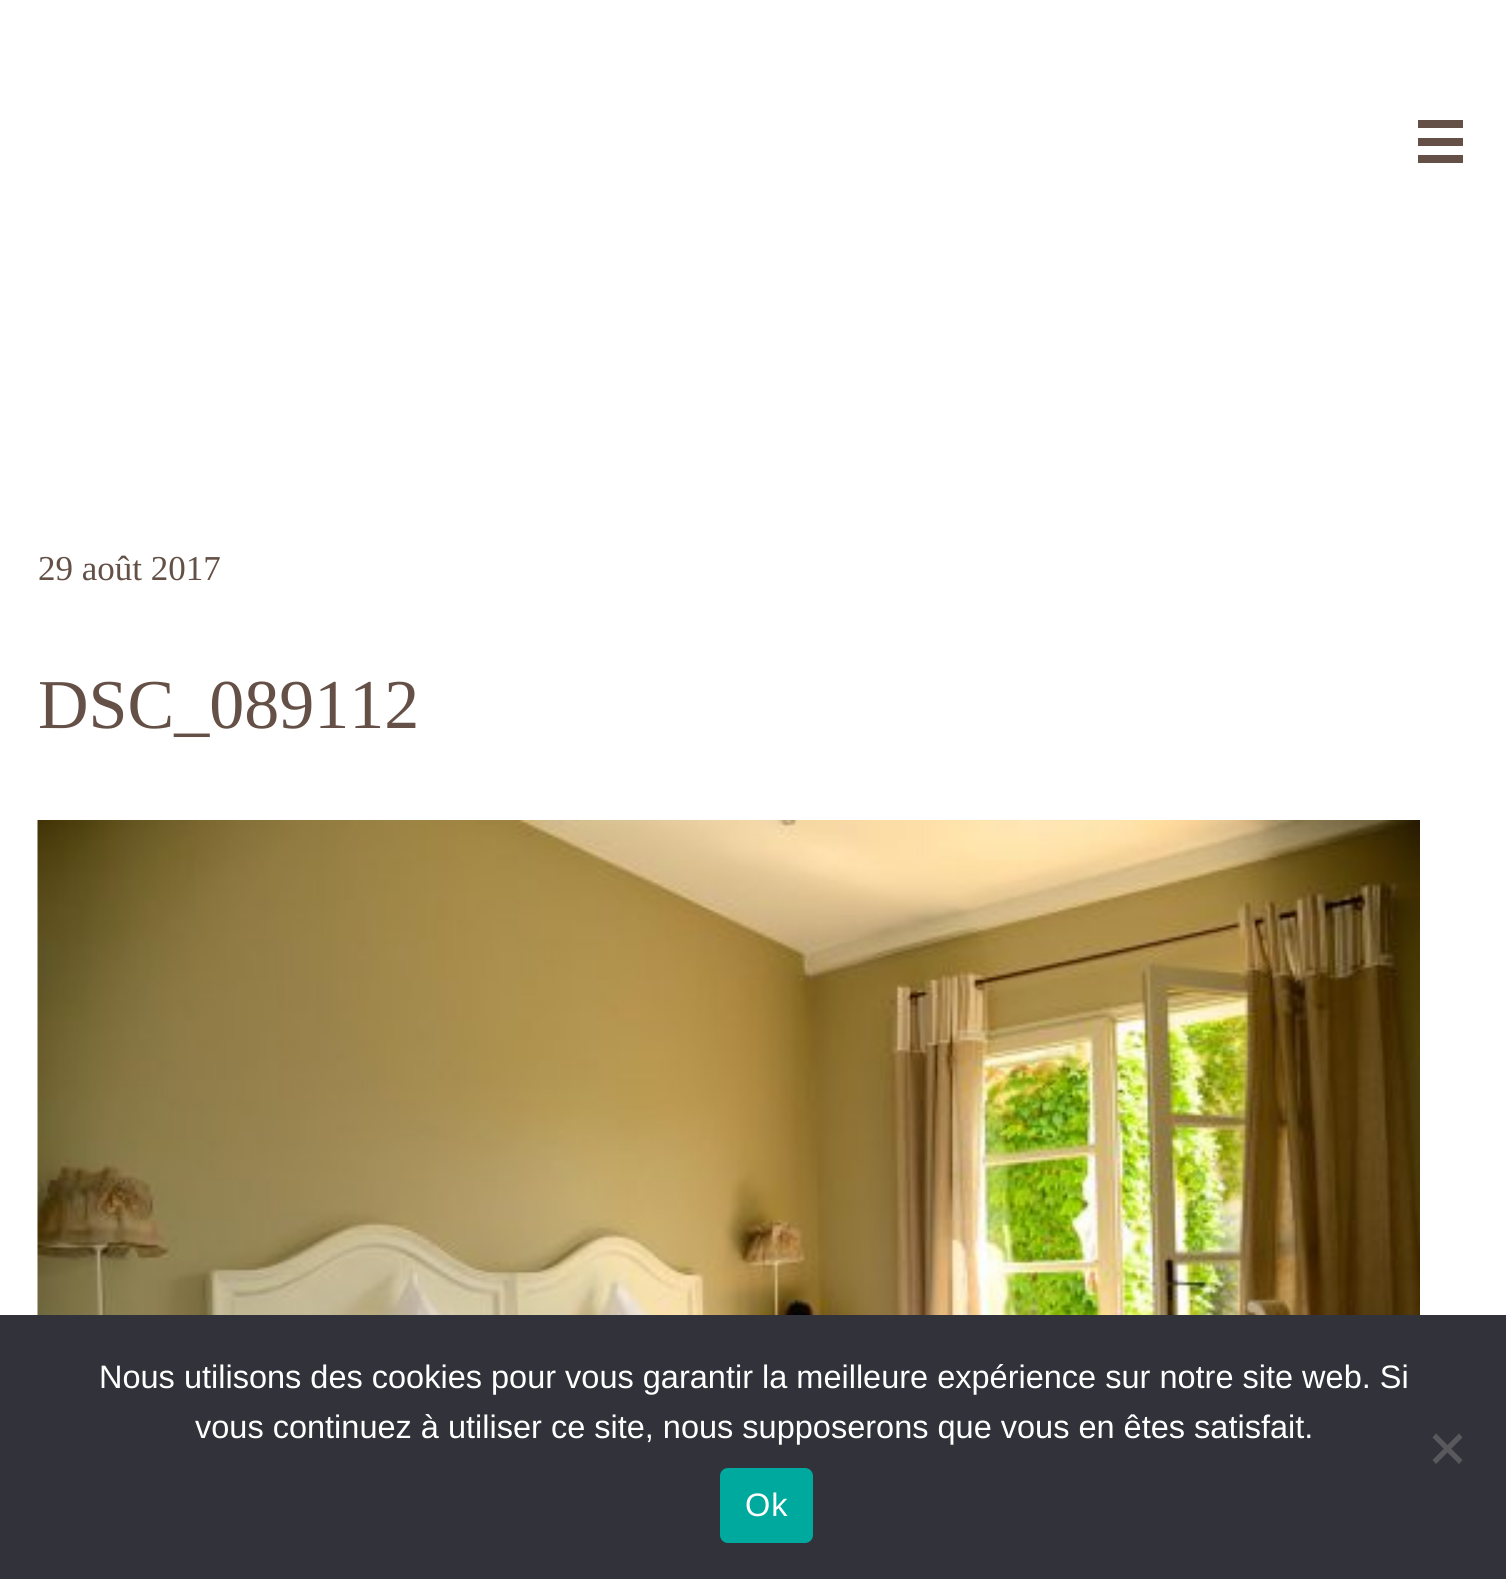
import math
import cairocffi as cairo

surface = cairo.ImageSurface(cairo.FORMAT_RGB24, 1506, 1579)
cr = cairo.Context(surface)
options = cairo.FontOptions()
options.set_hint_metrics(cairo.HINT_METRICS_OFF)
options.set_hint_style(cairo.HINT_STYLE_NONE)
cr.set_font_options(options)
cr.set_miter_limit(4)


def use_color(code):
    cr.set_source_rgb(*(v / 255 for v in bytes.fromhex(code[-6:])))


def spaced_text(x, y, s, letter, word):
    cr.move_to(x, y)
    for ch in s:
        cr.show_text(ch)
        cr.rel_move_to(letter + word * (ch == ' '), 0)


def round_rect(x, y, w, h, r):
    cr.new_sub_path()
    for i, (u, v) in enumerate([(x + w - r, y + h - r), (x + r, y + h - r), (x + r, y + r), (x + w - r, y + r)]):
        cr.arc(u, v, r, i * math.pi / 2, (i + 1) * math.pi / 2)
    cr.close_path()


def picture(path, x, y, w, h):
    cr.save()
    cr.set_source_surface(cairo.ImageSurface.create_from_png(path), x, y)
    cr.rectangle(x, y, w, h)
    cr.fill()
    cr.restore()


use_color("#ffffff")
cr.paint()
use_color("#645046")
cr.rectangle(1418, 138, 45, 8)
cr.fill()
cr.rectangle(1418, 120, 45, 8)
cr.fill()
cr.rectangle(1418, 155, 45, 8)
cr.fill()
cr.select_font_face("Liberation Serif")
cr.set_font_size(35)
cr.move_to(38, 580)
cr.show_text("29 août 2017")
cr.set_font_size(70)
cr.move_to(38, 728)
cr.show_text("DSC_089112")
picture("img1.png", 37, 820, 1383, 495)
use_color("#32323a")
cr.rectangle(0, 1315, 1506, 264)
cr.fill()
cr.select_font_face("Liberation Sans")
cr.set_font_size(32.5)
use_color("#ffffff")
cr.move_to(99, 1388)
cr.show_text("Nous utilisons des cookies pour vous garantir la meilleure expérience sur notre site web. Si")
cr.move_to(195, 1438)
cr.show_text("vous continuez à utiliser ce site, nous supposerons que vous en êtes satisfait.")
use_color("#59595d")
cr.new_path()
cr.move_to(1459, 1433.5)
cr.line_to(1462.5, 1437.5)
cr.line_to(1436, 1464)
cr.line_to(1432.5, 1460)
cr.close_path()
cr.fill()
cr.new_path()
cr.move_to(1432.5, 1437.5)
cr.line_to(1436, 1433.5)
cr.line_to(1462.5, 1460)
cr.line_to(1459, 1464)
cr.close_path()
cr.fill()
use_color("#00a99d")
round_rect(720, 1468, 93, 75, 8)
cr.fill()
use_color("#ffffff")
spaced_text(745, 1516, "Ok", 1, 0)
surface.write_to_png("result.png")
